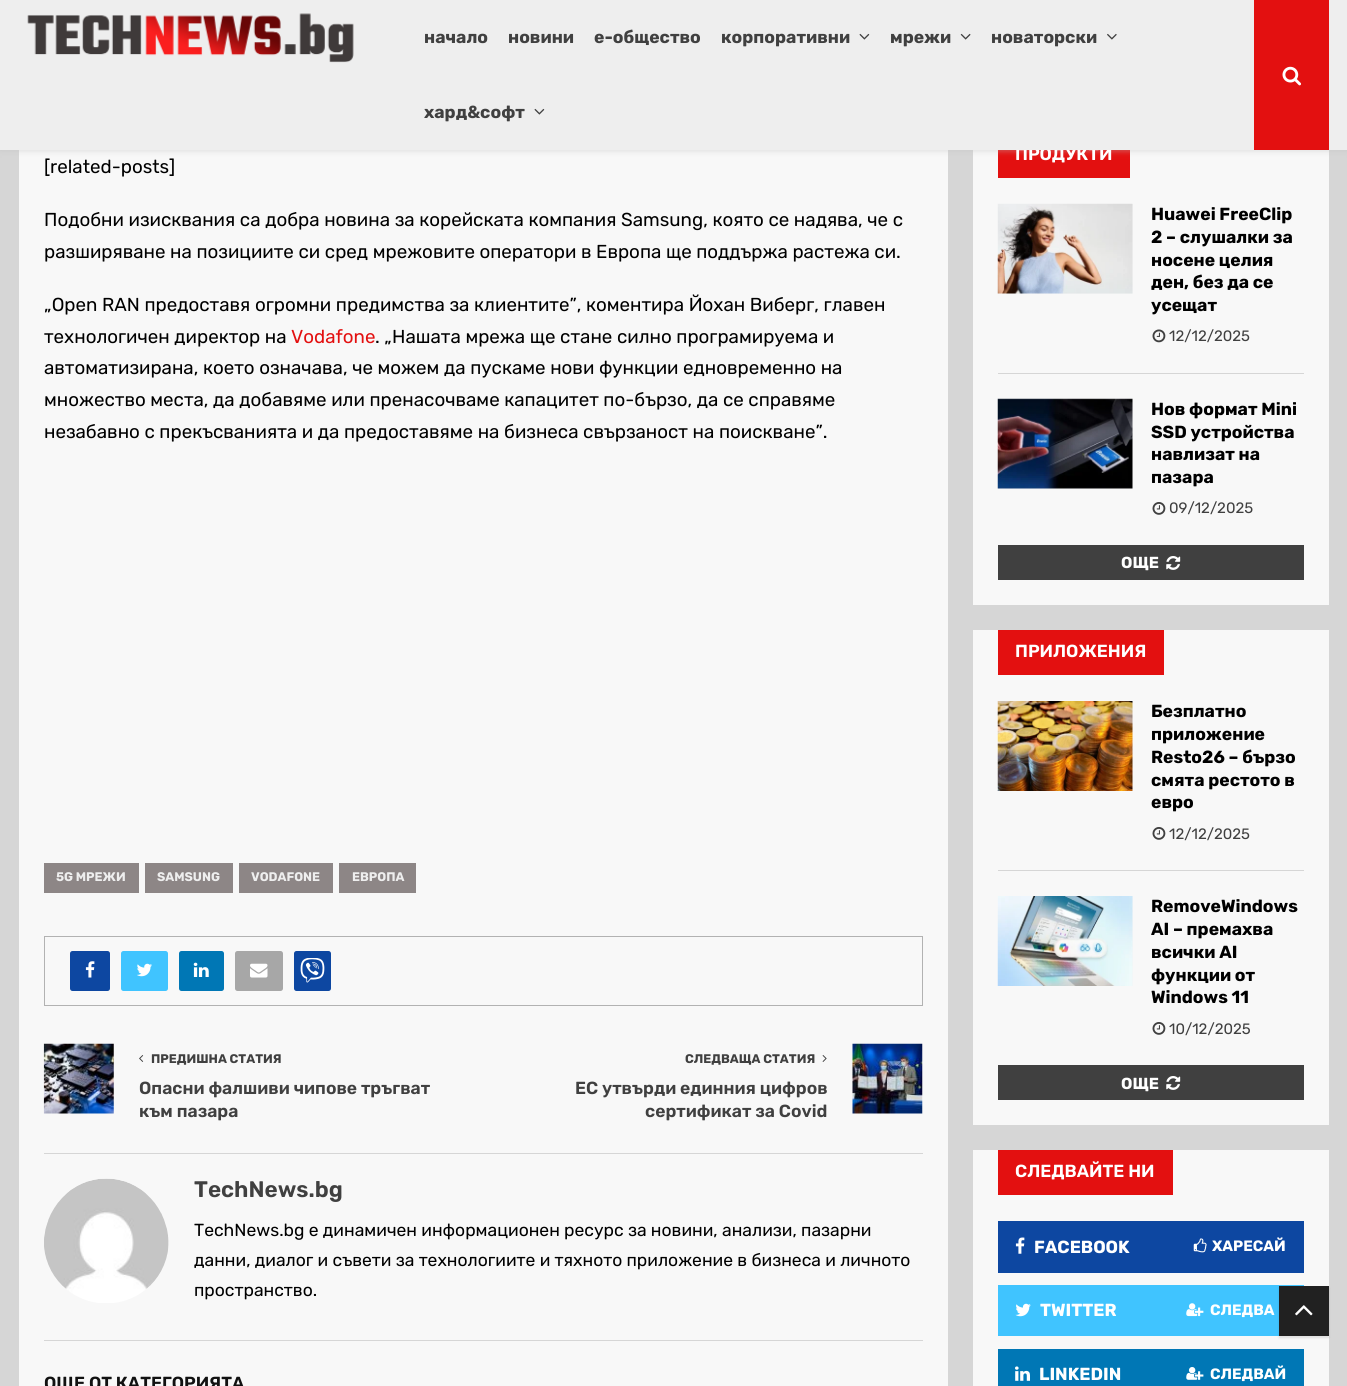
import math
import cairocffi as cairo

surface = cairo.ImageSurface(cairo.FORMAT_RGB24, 1347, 1386)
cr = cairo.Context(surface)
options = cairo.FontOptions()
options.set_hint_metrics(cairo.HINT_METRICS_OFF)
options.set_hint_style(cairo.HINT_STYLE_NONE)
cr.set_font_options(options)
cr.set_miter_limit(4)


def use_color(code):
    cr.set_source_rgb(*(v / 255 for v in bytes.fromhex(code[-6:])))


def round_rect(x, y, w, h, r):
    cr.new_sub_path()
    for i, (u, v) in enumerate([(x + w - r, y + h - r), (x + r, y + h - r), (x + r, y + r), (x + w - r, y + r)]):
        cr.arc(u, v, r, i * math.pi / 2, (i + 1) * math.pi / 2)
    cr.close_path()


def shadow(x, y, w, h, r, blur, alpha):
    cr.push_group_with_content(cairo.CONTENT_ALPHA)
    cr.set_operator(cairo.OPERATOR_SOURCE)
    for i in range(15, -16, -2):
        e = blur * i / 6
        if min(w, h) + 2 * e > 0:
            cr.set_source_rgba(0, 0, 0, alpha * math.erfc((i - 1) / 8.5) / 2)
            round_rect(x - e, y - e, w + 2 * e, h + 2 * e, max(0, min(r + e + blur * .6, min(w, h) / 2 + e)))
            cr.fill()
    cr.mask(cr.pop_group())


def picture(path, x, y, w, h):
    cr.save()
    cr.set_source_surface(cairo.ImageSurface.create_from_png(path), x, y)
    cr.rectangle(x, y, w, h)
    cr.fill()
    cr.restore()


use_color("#d6d6d6")
cr.paint()
use_color("#f8f8f8")
cr.rectangle(19, 150, 929, 1236)
cr.fill()
cr.rectangle(973, 150, 356, 455)
cr.fill()
use_color("#e31010")
cr.rectangle(998, 150, 132, 28)
cr.fill()
use_color("#bebebe")
shadow(0, 1, 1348, 150, 0, 3, 0.46)
cr.select_font_face("Rubik SemiBold")
cr.set_font_size(17.5)
use_color("#ffffff")
cr.move_to(1015, 160)
cr.show_text("ПРОДУКТИ")
use_color("#eeeeee")
cr.rectangle(0, 0, 1347, 150)
cr.fill()
picture("img1.png", 27, 13, 327, 50)
cr.select_font_face("Rubik", cairo.FONT_SLANT_NORMAL, cairo.FONT_WEIGHT_BOLD)
use_color("#404040")
cr.move_to(424, 43)
cr.show_text("начало")
cr.move_to(508, 43)
cr.show_text("новини")
cr.move_to(594, 43)
cr.show_text("е-общество")
cr.move_to(721, 43)
cr.show_text("корпоративни")
picture("img2.png", 859, 33, 11, 7)
cr.move_to(890, 43)
cr.show_text("мрежи")
picture("img3.png", 960, 33, 11, 7)
cr.move_to(991, 43)
cr.show_text("новаторски")
picture("img4.png", 1107, 33, 10, 7)
cr.move_to(424, 118)
cr.show_text("хард&софт")
picture("img2.png", 534, 108, 11, 7)
use_color("#e31010")
cr.rectangle(1254, 0, 75, 150)
cr.fill()
picture("img5.png", 1282, 66, 19, 20)
cr.select_font_face("Rubik")
cr.set_font_size(18.75)
use_color("#000000")
cr.move_to(44, 173)
cr.show_text("[related-posts]")
cr.move_to(44, 226)
cr.show_text("Подобни изисквания са добра новина за корейската компания Samsung, която се надява, че с")
cr.move_to(44, 258)
cr.show_text("разширяване на позициите си сред мрежовите оператори в Европа ще поддържа растежа си.")
cr.move_to(44, 311)
cr.show_text("„Open RAN предоставя огромни предимства за клиентите”, коментира Йохан Виберг, главен")
cr.move_to(44, 343)
cr.show_text("технологичен директор на")
use_color("#e31010")
cr.move_to(291, 343)
cr.show_text("Vodafone")
use_color("#000000")
cr.move_to(375, 343)
cr.show_text(". „Нашата мрежа ще стане силно програмируема и")
cr.move_to(44, 374)
cr.show_text("автоматизирана, което означава, че можем да пускаме нови функции едновременно на")
cr.move_to(44, 406)
cr.show_text("множество места, да добавяме или пренасочваме капацитет по-бързо, да се справяме")
cr.move_to(44, 438)
cr.show_text("незабавно с прекъсванията и да предоставяме на бизнеса свързаност на поискване”.")
use_color("#8d8686")
cr.rectangle(44, 863, 95, 30)
cr.fill()
cr.select_font_face("Rubik", cairo.FONT_SLANT_NORMAL, cairo.FONT_WEIGHT_BOLD)
cr.set_font_size(12.5)
use_color("#eeeeee")
cr.move_to(56, 881)
cr.show_text("5G МРЕЖИ")
use_color("#8d8686")
cr.rectangle(145, 863, 88, 30)
cr.fill()
use_color("#eeeeee")
cr.move_to(157, 881)
cr.show_text("SAMSUNG")
use_color("#8d8686")
cr.rectangle(239, 863, 94, 30)
cr.fill()
use_color("#eeeeee")
cr.move_to(251, 881)
cr.show_text("VODAFONE")
use_color("#8d8686")
cr.rectangle(339, 863, 77, 30)
cr.fill()
use_color("#eeeeee")
cr.move_to(352, 881)
cr.show_text("ЕВРОПА")
cr.rectangle(44.5, 936.5, 878, 69)
use_color("#b2b2b2")
cr.set_line_width(1)
cr.stroke()
use_color("#0d47a1")
round_rect(70, 951, 40, 40, 2.5)
cr.fill()
picture("img6.png", 85, 961, 10, 17)
use_color("#40c4ff")
round_rect(121, 951, 47, 40, 2.5)
cr.fill()
picture("img7.png", 137, 963, 15, 14)
use_color("#0077b5")
round_rect(179, 951, 45, 40, 2.5)
cr.fill()
picture("img8.png", 193, 962, 16, 15)
use_color("#a7a7a7")
round_rect(235, 951, 48, 40, 2.5)
cr.fill()
picture("img9.png", 250, 963, 18, 15)
use_color("#0d47a1")
round_rect(294, 951, 37, 40, 2.5)
cr.fill()
picture("img10.png", 300, 958, 25, 25)
use_color("#d6d6d6")
cr.rectangle(44, 1153, 879, 1)
cr.fill()
picture("img11.png", 43, 1043, 71, 71)
picture("img12.png", 139, 1055, 5, 7)
use_color("#404040")
cr.move_to(151, 1063)
cr.show_text("ПРЕДИШНА СТАТИЯ")
cr.select_font_face("Rubik SemiBold")
cr.set_font_size(17.5)
cr.move_to(139, 1094)
cr.show_text("Опасни фалшиви чипове тръгват")
cr.move_to(139, 1117)
cr.show_text("към пазара")
cr.select_font_face("Rubik", cairo.FONT_SLANT_NORMAL, cairo.FONT_WEIGHT_BOLD)
cr.set_font_size(12.5)
cr.move_to(685, 1063)
cr.show_text("СЛЕДВАЩА СТАТИЯ")
picture("img13.png", 822, 1055, 5, 7)
cr.select_font_face("Rubik SemiBold")
cr.set_font_size(17.5)
cr.move_to(575, 1094)
cr.show_text("ЕС утвърди единния цифров")
cr.move_to(645, 1117)
cr.show_text("сертификат за Covid")
picture("img14.png", 852, 1043, 71, 71)
use_color("#d6d6d6")
cr.rectangle(44, 1340, 879, 1)
cr.fill()
picture("img15.png", 44, 1178, 125, 125)
cr.set_font_size(22.5)
use_color("#404040")
cr.move_to(194, 1197)
cr.show_text("TechNews.bg")
cr.select_font_face("Rubik")
cr.set_font_size(17.5)
use_color("#000000")
cr.move_to(194, 1236)
cr.show_text("TechNews.bg е динамичен информационен ресурс за новини, анализи, пазарни")
cr.move_to(194, 1266)
cr.show_text("данни, диалог и съвети за технологиите и тяхното приложение в бизнеса и личното")
cr.move_to(194, 1296)
cr.show_text("пространство.")
cr.select_font_face("Rubik SemiBold")
use_color("#111111")
cr.move_to(44, 1389)
cr.show_text("ОЩЕ ОТ КАТЕГОРИЯТА")
use_color("#d6d6d6")
cr.rectangle(998, 373, 306, 1)
cr.fill()
use_color("#f5f5f5")
cr.rectangle(998, 204, 135, 90)
cr.fill()
picture("img16.png", 997, 203, 136, 91)
cr.select_font_face("Rubik", cairo.FONT_SLANT_NORMAL, cairo.FONT_WEIGHT_BOLD)
use_color("#000000")
cr.move_to(1151, 220)
cr.show_text("Huawei FreeClip")
cr.move_to(1151, 243)
cr.show_text("2 – слушалки за")
cr.move_to(1151, 266)
cr.show_text("носене целия")
cr.move_to(1151, 288)
cr.show_text("ден, без да се")
cr.move_to(1151, 311)
cr.show_text("усещат")
picture("img17.png", 1152, 329, 14, 14)
cr.select_font_face("Rubik")
cr.set_font_size(15)
use_color("#404040")
cr.move_to(1169, 341)
cr.show_text("12/12/2025")
use_color("#f5f5f5")
cr.rectangle(998, 399, 135, 90)
cr.fill()
picture("img18.png", 997, 398, 136, 91)
cr.select_font_face("Rubik", cairo.FONT_SLANT_NORMAL, cairo.FONT_WEIGHT_BOLD)
cr.set_font_size(17.5)
use_color("#000000")
cr.move_to(1151, 415)
cr.show_text("Нов формат Mini")
cr.move_to(1151, 438)
cr.show_text("SSD устройства")
cr.move_to(1151, 460)
cr.show_text("навлизат на")
cr.move_to(1151, 483)
cr.show_text("пазара")
picture("img19.png", 1152, 502, 14, 13)
cr.select_font_face("Rubik")
cr.set_font_size(15)
use_color("#404040")
cr.move_to(1169, 513)
cr.show_text("09/12/2025")
cr.rectangle(998, 545, 306, 35)
cr.fill()
cr.select_font_face("Rubik", cairo.FONT_SLANT_NORMAL, cairo.FONT_WEIGHT_BOLD)
cr.set_font_size(16)
use_color("#ffffff")
cr.move_to(1121, 568)
cr.show_text("ОЩЕ")
picture("img20.png", 1166, 556, 15, 14)
use_color("#f8f8f8")
cr.rectangle(973, 630, 356, 495)
cr.fill()
use_color("#e31010")
cr.rectangle(998, 630, 166, 45)
cr.fill()
cr.select_font_face("Rubik SemiBold")
cr.set_font_size(17.5)
use_color("#ffffff")
cr.move_to(1015, 657)
cr.show_text("ПРИЛОЖЕНИЯ")
use_color("#d6d6d6")
cr.rectangle(998, 870, 306, 1)
cr.fill()
use_color("#f5f5f5")
cr.rectangle(1132, 701, 1, 90)
cr.fill()
picture("img21.png", 997, 701, 136, 90)
cr.select_font_face("Rubik", cairo.FONT_SLANT_NORMAL, cairo.FONT_WEIGHT_BOLD)
use_color("#000000")
cr.move_to(1151, 717)
cr.show_text("Безплатно")
cr.move_to(1151, 740)
cr.show_text("приложение")
cr.move_to(1151, 763)
cr.show_text("Resto26 – бързо")
cr.move_to(1151, 786)
cr.show_text("смята рестото в")
cr.move_to(1151, 808)
cr.show_text("евро")
picture("img19.png", 1152, 827, 14, 13)
cr.select_font_face("Rubik")
cr.set_font_size(15)
use_color("#404040")
cr.move_to(1169, 839)
cr.show_text("12/12/2025")
use_color("#f5f5f5")
cr.rectangle(1132, 896, 1, 90)
cr.fill()
picture("img22.png", 997, 896, 136, 90)
cr.select_font_face("Rubik", cairo.FONT_SLANT_NORMAL, cairo.FONT_WEIGHT_BOLD)
cr.set_font_size(17.5)
use_color("#000000")
cr.move_to(1151, 912)
cr.show_text("RemoveWindows")
cr.move_to(1151, 935)
cr.show_text("AI – премахва")
cr.move_to(1151, 958)
cr.show_text("всички AI")
cr.move_to(1151, 981)
cr.show_text("функции от")
cr.move_to(1151, 1003)
cr.show_text("Windows 11")
picture("img19.png", 1152, 1022, 14, 13)
cr.select_font_face("Rubik")
cr.set_font_size(15)
use_color("#404040")
cr.move_to(1169, 1034)
cr.show_text("10/12/2025")
cr.rectangle(998, 1065, 306, 35)
cr.fill()
cr.select_font_face("Rubik", cairo.FONT_SLANT_NORMAL, cairo.FONT_WEIGHT_BOLD)
cr.set_font_size(16)
use_color("#ffffff")
cr.move_to(1121, 1089)
cr.show_text("ОЩЕ")
picture("img20.png", 1166, 1076, 15, 14)
use_color("#f8f8f8")
cr.rectangle(973, 1150, 356, 236)
cr.fill()
use_color("#e31010")
cr.rectangle(998, 1150, 175, 45)
cr.fill()
cr.select_font_face("Rubik SemiBold")
cr.set_font_size(17.5)
use_color("#ffffff")
cr.move_to(1015, 1177)
cr.show_text("СЛЕДВАЙТЕ НИ")
use_color("#0d47a1")
cr.rectangle(998, 1221, 306, 52)
cr.fill()
picture("img23.png", 1015, 1237, 10, 17)
cr.select_font_face("Rubik", cairo.FONT_SLANT_NORMAL, cairo.FONT_WEIGHT_BOLD)
use_color("#ffffff")
cr.move_to(1034, 1253)
cr.show_text("FACEBOOK")
picture("img24.png", 1193, 1238, 14, 15)
cr.set_font_size(15)
cr.move_to(1212, 1251)
cr.show_text("ХАРЕСАЙ")
use_color("#40c4ff")
cr.rectangle(998, 1285, 306, 51)
cr.fill()
picture("img25.png", 1015, 1303, 16, 14)
cr.set_font_size(17.5)
use_color("#ffffff")
cr.move_to(1040, 1316)
cr.show_text("TWITTER")
picture("img26.png", 1186, 1303, 18, 14)
cr.set_font_size(15)
cr.move_to(1210, 1315)
cr.show_text("СЛЕДВА")
use_color("#0077b5")
cr.rectangle(998, 1349, 306, 37)
cr.fill()
picture("img27.png", 1015, 1366, 15, 15)
cr.set_font_size(17.5)
use_color("#ffffff")
cr.move_to(1039, 1380)
cr.show_text("LINKEDIN")
picture("img28.png", 1186, 1367, 18, 13)
cr.set_font_size(15)
cr.move_to(1210, 1379)
cr.show_text("СЛЕДВАЙ")
use_color("#000000")
shadow(1279, 1288, 50, 50, 0, 1, 0.1)
use_color("#212121")
cr.rectangle(1279, 1286, 50, 50)
cr.fill()
picture("img29.png", 1295, 1305, 18, 11)
surface.write_to_png("result.png")
